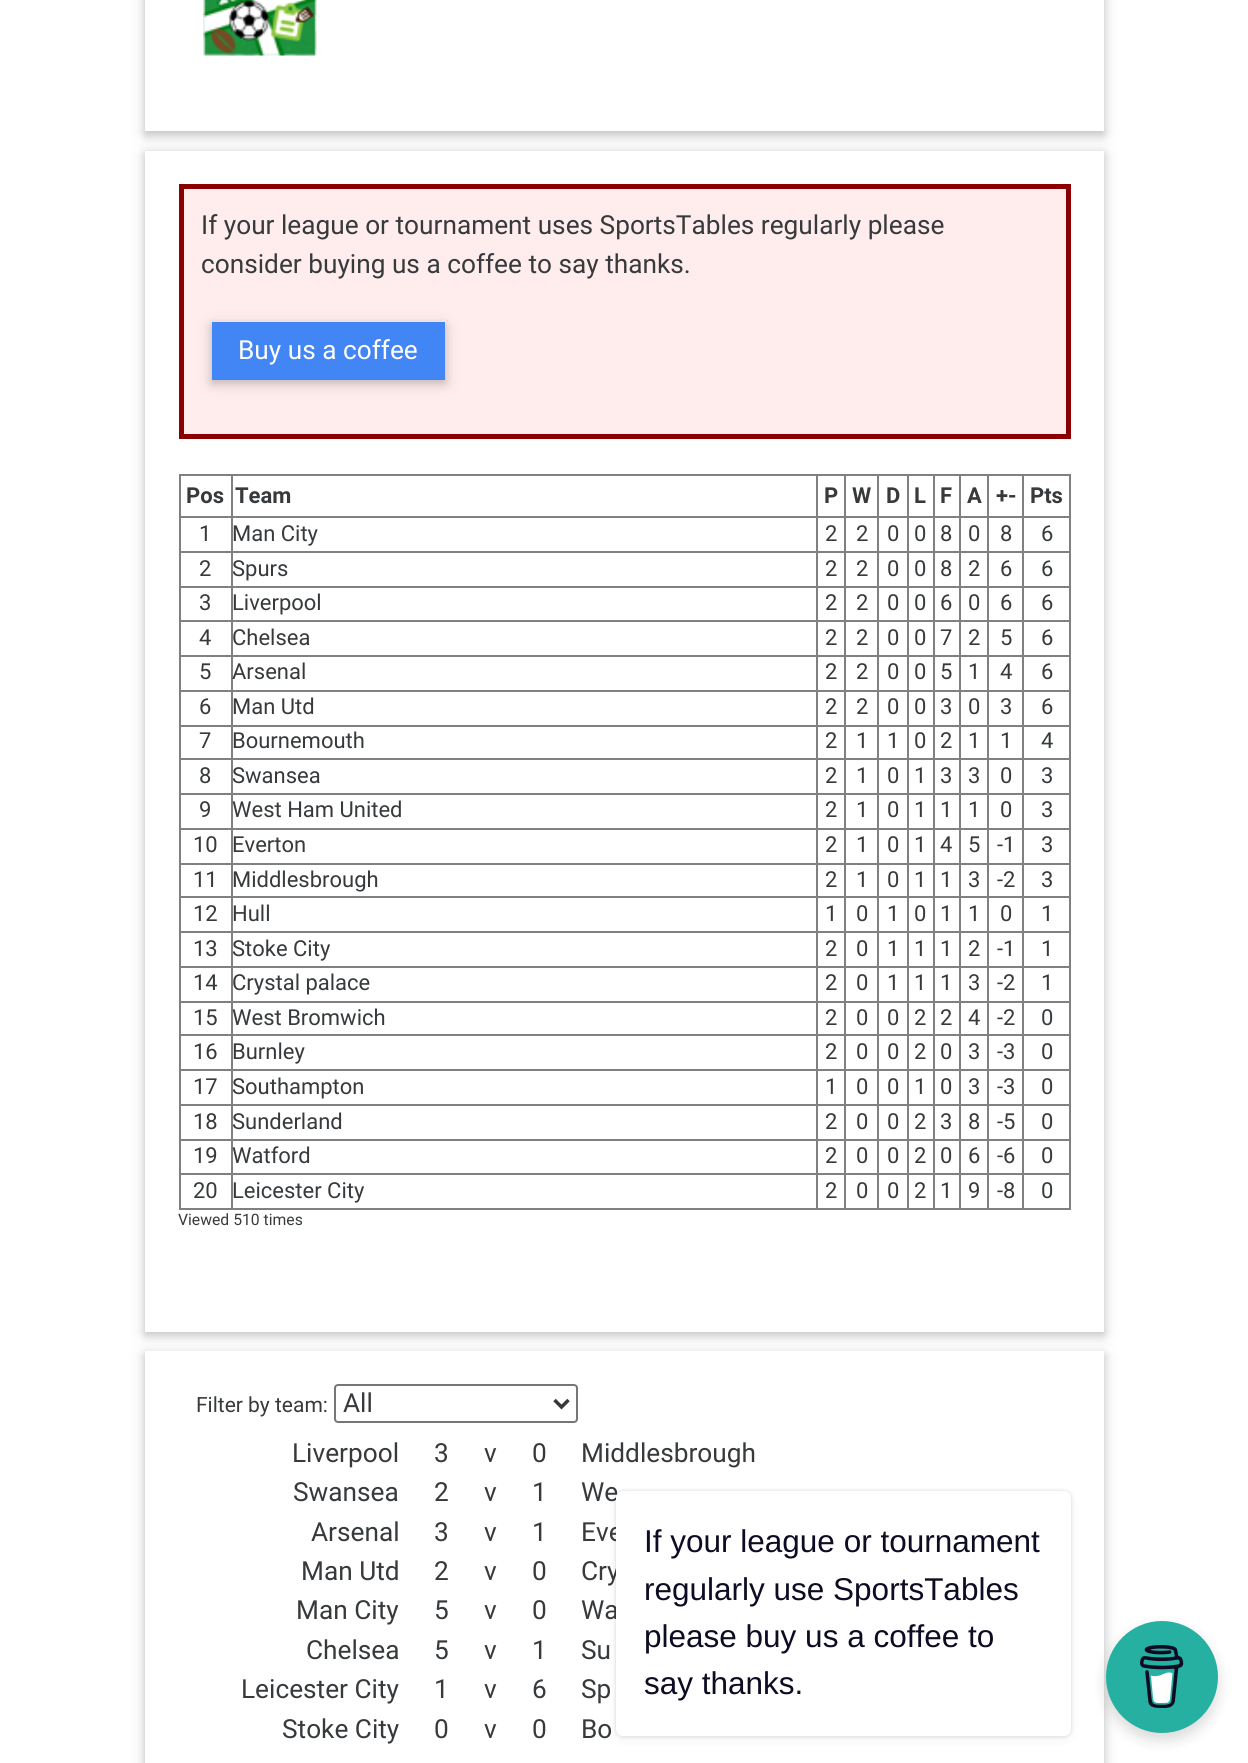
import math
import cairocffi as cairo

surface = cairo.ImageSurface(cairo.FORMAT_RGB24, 1248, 1763)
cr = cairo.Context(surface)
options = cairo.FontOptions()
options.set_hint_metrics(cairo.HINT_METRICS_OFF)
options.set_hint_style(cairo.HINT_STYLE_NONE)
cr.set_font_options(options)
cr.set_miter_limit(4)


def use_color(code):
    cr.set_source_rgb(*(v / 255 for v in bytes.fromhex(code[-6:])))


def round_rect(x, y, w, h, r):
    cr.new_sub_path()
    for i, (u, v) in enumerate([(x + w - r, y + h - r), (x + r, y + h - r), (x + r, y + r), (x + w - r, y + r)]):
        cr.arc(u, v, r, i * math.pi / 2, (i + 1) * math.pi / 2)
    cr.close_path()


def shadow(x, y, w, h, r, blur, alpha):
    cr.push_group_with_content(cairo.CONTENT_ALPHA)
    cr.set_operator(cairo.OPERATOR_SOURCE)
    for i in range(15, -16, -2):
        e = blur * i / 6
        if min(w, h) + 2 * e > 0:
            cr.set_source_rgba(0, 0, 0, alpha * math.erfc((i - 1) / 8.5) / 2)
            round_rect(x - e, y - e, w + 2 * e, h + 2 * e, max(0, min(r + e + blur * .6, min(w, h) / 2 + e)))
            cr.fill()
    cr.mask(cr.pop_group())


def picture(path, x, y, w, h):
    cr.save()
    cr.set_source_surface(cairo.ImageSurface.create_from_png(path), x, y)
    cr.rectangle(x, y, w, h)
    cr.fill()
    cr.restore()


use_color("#ffffff")
cr.paint()
use_color("#000000")
shadow(145, -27, 959, 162, 0, 9, 0.12)
shadow(145, -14, 959, 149, 0, 4.5, 0.16)
use_color("#ffffff")
cr.rectangle(145, 0, 959, 131)
cr.fill()
picture("img1.png", 203, 0, 114, 56)
use_color("#000000")
shadow(145, 154, 959, 1181, 0, 9, 0.12)
shadow(145, 154, 959, 1181, 0, 4.5, 0.16)
use_color("#ffffff")
cr.rectangle(145, 151, 959, 1181)
cr.fill()
use_color("#ffeded")
cr.rectangle(181.5, 186.5, 887, 250)
cr.fill_preserve()
use_color("#8b0000")
cr.set_line_width(5)
cr.stroke()
cr.select_font_face("Roboto")
cr.set_font_size(26.25)
use_color("#373a3c")
cr.move_to(201, 234)
cr.show_text("If your league or tournament uses SportsTables regularly please")
cr.move_to(201, 273)
cr.show_text("consider buying us a coffee to say thanks.")
use_color("#000000")
shadow(212, 326, 233, 57, 0, 9, 0.12)
shadow(212, 326, 233, 57, 0, 4.5, 0.16)
use_color("#4285f4")
cr.rectangle(212, 322, 233, 58)
cr.fill()
use_color("#ffffff")
cr.move_to(238, 359)
cr.show_text("Buy us a coffee")
use_color("#808080")
cr.rectangle(179, 474, 892, 2)
cr.fill()
cr.rectangle(1069, 474, 2, 735)
cr.fill()
cr.rectangle(179, 1208, 892, 2)
cr.fill()
cr.rectangle(179, 474, 2, 735)
cr.fill()
cr.select_font_face("Roboto", cairo.FONT_SLANT_NORMAL, cairo.FONT_WEIGHT_BOLD)
cr.set_font_size(22)
use_color("#373a3c")
cr.move_to(186, 503)
cr.show_text("Pos")
use_color("#808080")
cr.rectangle(1022, 516, 49, 2)
cr.fill()
cr.rectangle(1022, 551, 49, 2)
cr.fill()
cr.rectangle(1022, 586, 49, 2)
cr.fill()
cr.rectangle(1022, 620, 49, 2)
cr.fill()
cr.rectangle(1022, 655, 49, 2)
cr.fill()
cr.rectangle(1022, 690, 49, 2)
cr.fill()
cr.rectangle(1022, 725, 49, 2)
cr.fill()
cr.rectangle(1022, 758, 49, 2)
cr.fill()
cr.rectangle(1022, 793, 49, 2)
cr.fill()
cr.rectangle(1022, 828, 49, 2)
cr.fill()
cr.rectangle(1022, 863, 49, 2)
cr.fill()
cr.rectangle(1022, 896, 49, 2)
cr.fill()
cr.rectangle(1022, 931, 49, 2)
cr.fill()
cr.rectangle(1022, 966, 49, 2)
cr.fill()
cr.rectangle(1022, 1001, 49, 2)
cr.fill()
cr.rectangle(1022, 1034, 49, 2)
cr.fill()
cr.rectangle(1022, 1069, 49, 2)
cr.fill()
cr.rectangle(1022, 1104, 49, 2)
cr.fill()
cr.rectangle(1022, 1139, 49, 2)
cr.fill()
cr.rectangle(1022, 1173, 49, 2)
cr.fill()
cr.rectangle(1022, 1173, 2, 36)
cr.fill()
cr.rectangle(987, 1173, 37, 2)
cr.fill()
cr.rectangle(1022, 1139, 2, 35)
cr.fill()
cr.rectangle(987, 1139, 37, 2)
cr.fill()
cr.rectangle(1022, 1104, 2, 37)
cr.fill()
cr.rectangle(987, 1104, 37, 2)
cr.fill()
cr.rectangle(1022, 1069, 2, 37)
cr.fill()
cr.rectangle(987, 1069, 37, 2)
cr.fill()
cr.rectangle(1022, 1034, 2, 37)
cr.fill()
cr.rectangle(987, 1034, 37, 2)
cr.fill()
cr.rectangle(1022, 1001, 2, 35)
cr.fill()
cr.rectangle(987, 1001, 37, 2)
cr.fill()
cr.rectangle(1022, 966, 2, 37)
cr.fill()
cr.rectangle(987, 966, 37, 2)
cr.fill()
cr.rectangle(1022, 931, 2, 37)
cr.fill()
cr.rectangle(987, 931, 37, 2)
cr.fill()
cr.rectangle(1022, 896, 2, 37)
cr.fill()
cr.rectangle(987, 896, 37, 2)
cr.fill()
cr.rectangle(1022, 863, 2, 35)
cr.fill()
cr.rectangle(987, 863, 37, 2)
cr.fill()
cr.rectangle(1022, 828, 2, 37)
cr.fill()
cr.rectangle(987, 828, 37, 2)
cr.fill()
cr.rectangle(1022, 793, 2, 37)
cr.fill()
cr.rectangle(987, 793, 37, 2)
cr.fill()
cr.rectangle(1022, 758, 2, 37)
cr.fill()
cr.rectangle(987, 758, 37, 2)
cr.fill()
cr.rectangle(1022, 725, 2, 35)
cr.fill()
cr.rectangle(987, 725, 37, 2)
cr.fill()
cr.rectangle(1022, 690, 2, 36)
cr.fill()
cr.rectangle(987, 690, 37, 2)
cr.fill()
cr.rectangle(1022, 655, 2, 36)
cr.fill()
cr.rectangle(987, 655, 37, 2)
cr.fill()
cr.rectangle(1022, 620, 2, 36)
cr.fill()
cr.rectangle(987, 620, 37, 2)
cr.fill()
cr.rectangle(1022, 586, 2, 35)
cr.fill()
cr.rectangle(987, 586, 37, 2)
cr.fill()
cr.rectangle(1022, 551, 2, 37)
cr.fill()
cr.rectangle(987, 551, 37, 2)
cr.fill()
cr.rectangle(1022, 516, 2, 37)
cr.fill()
cr.rectangle(987, 516, 37, 2)
cr.fill()
cr.rectangle(987, 1173, 2, 36)
cr.fill()
cr.rectangle(959, 1173, 30, 2)
cr.fill()
cr.rectangle(987, 1139, 2, 35)
cr.fill()
cr.rectangle(959, 1139, 30, 2)
cr.fill()
cr.rectangle(987, 1104, 2, 37)
cr.fill()
cr.rectangle(959, 1104, 30, 2)
cr.fill()
cr.rectangle(987, 1069, 2, 37)
cr.fill()
cr.rectangle(959, 1069, 30, 2)
cr.fill()
cr.rectangle(987, 1034, 2, 37)
cr.fill()
cr.rectangle(959, 1034, 30, 2)
cr.fill()
cr.rectangle(987, 1001, 2, 35)
cr.fill()
cr.rectangle(959, 1001, 30, 2)
cr.fill()
cr.rectangle(987, 966, 2, 37)
cr.fill()
cr.rectangle(959, 966, 30, 2)
cr.fill()
cr.rectangle(987, 931, 2, 37)
cr.fill()
cr.rectangle(959, 931, 30, 2)
cr.fill()
cr.rectangle(987, 896, 2, 37)
cr.fill()
cr.rectangle(959, 896, 30, 2)
cr.fill()
cr.rectangle(987, 863, 2, 35)
cr.fill()
cr.rectangle(959, 863, 30, 2)
cr.fill()
cr.rectangle(987, 828, 2, 37)
cr.fill()
cr.rectangle(959, 828, 30, 2)
cr.fill()
cr.rectangle(987, 793, 2, 37)
cr.fill()
cr.rectangle(959, 793, 30, 2)
cr.fill()
cr.rectangle(987, 758, 2, 37)
cr.fill()
cr.rectangle(959, 758, 30, 2)
cr.fill()
cr.rectangle(987, 725, 2, 35)
cr.fill()
cr.rectangle(959, 725, 30, 2)
cr.fill()
cr.rectangle(987, 690, 2, 36)
cr.fill()
cr.rectangle(959, 690, 30, 2)
cr.fill()
cr.rectangle(987, 655, 2, 36)
cr.fill()
cr.rectangle(959, 655, 30, 2)
cr.fill()
cr.rectangle(987, 620, 2, 36)
cr.fill()
cr.rectangle(959, 620, 30, 2)
cr.fill()
cr.rectangle(987, 586, 2, 35)
cr.fill()
cr.rectangle(959, 586, 30, 2)
cr.fill()
cr.rectangle(987, 551, 2, 37)
cr.fill()
cr.rectangle(959, 551, 30, 2)
cr.fill()
cr.rectangle(987, 516, 2, 37)
cr.fill()
cr.rectangle(959, 516, 30, 2)
cr.fill()
cr.rectangle(959, 1173, 2, 36)
cr.fill()
cr.rectangle(933, 1173, 28, 2)
cr.fill()
cr.rectangle(959, 1139, 2, 35)
cr.fill()
cr.rectangle(933, 1139, 28, 2)
cr.fill()
cr.rectangle(959, 1104, 2, 37)
cr.fill()
cr.rectangle(933, 1104, 28, 2)
cr.fill()
cr.rectangle(959, 1069, 2, 37)
cr.fill()
cr.rectangle(933, 1069, 28, 2)
cr.fill()
cr.rectangle(959, 1034, 2, 37)
cr.fill()
cr.rectangle(933, 1034, 28, 2)
cr.fill()
cr.rectangle(959, 1001, 2, 35)
cr.fill()
cr.rectangle(933, 1001, 28, 2)
cr.fill()
cr.rectangle(959, 966, 2, 37)
cr.fill()
cr.rectangle(933, 966, 28, 2)
cr.fill()
cr.rectangle(959, 931, 2, 37)
cr.fill()
cr.rectangle(933, 931, 28, 2)
cr.fill()
cr.rectangle(959, 896, 2, 37)
cr.fill()
cr.rectangle(933, 896, 28, 2)
cr.fill()
cr.rectangle(959, 863, 2, 35)
cr.fill()
cr.rectangle(933, 863, 28, 2)
cr.fill()
cr.rectangle(959, 828, 2, 37)
cr.fill()
cr.rectangle(933, 828, 28, 2)
cr.fill()
cr.rectangle(959, 793, 2, 37)
cr.fill()
cr.rectangle(933, 793, 28, 2)
cr.fill()
cr.rectangle(959, 758, 2, 37)
cr.fill()
cr.rectangle(933, 758, 28, 2)
cr.fill()
cr.rectangle(959, 725, 2, 35)
cr.fill()
cr.rectangle(933, 725, 28, 2)
cr.fill()
cr.rectangle(959, 690, 2, 36)
cr.fill()
cr.rectangle(933, 690, 28, 2)
cr.fill()
cr.rectangle(959, 655, 2, 36)
cr.fill()
cr.rectangle(933, 655, 28, 2)
cr.fill()
cr.rectangle(959, 620, 2, 36)
cr.fill()
cr.rectangle(933, 620, 28, 2)
cr.fill()
cr.rectangle(959, 586, 2, 35)
cr.fill()
cr.rectangle(933, 586, 28, 2)
cr.fill()
cr.rectangle(959, 551, 2, 37)
cr.fill()
cr.rectangle(933, 551, 28, 2)
cr.fill()
cr.rectangle(959, 516, 2, 37)
cr.fill()
cr.rectangle(933, 516, 28, 2)
cr.fill()
cr.rectangle(933, 1173, 2, 36)
cr.fill()
cr.rectangle(907, 1173, 28, 2)
cr.fill()
cr.rectangle(933, 1139, 2, 35)
cr.fill()
cr.rectangle(907, 1139, 28, 2)
cr.fill()
cr.rectangle(933, 1104, 2, 37)
cr.fill()
cr.rectangle(907, 1104, 28, 2)
cr.fill()
cr.rectangle(933, 1069, 2, 37)
cr.fill()
cr.rectangle(907, 1069, 28, 2)
cr.fill()
cr.rectangle(933, 1034, 2, 37)
cr.fill()
cr.rectangle(907, 1034, 28, 2)
cr.fill()
cr.rectangle(933, 1001, 2, 35)
cr.fill()
cr.rectangle(907, 1001, 28, 2)
cr.fill()
cr.rectangle(933, 966, 2, 37)
cr.fill()
cr.rectangle(907, 966, 28, 2)
cr.fill()
cr.rectangle(933, 931, 2, 37)
cr.fill()
cr.rectangle(907, 931, 28, 2)
cr.fill()
cr.rectangle(933, 896, 2, 37)
cr.fill()
cr.rectangle(907, 896, 28, 2)
cr.fill()
cr.rectangle(933, 863, 2, 35)
cr.fill()
cr.rectangle(907, 863, 28, 2)
cr.fill()
cr.rectangle(933, 828, 2, 37)
cr.fill()
cr.rectangle(907, 828, 28, 2)
cr.fill()
cr.rectangle(933, 793, 2, 37)
cr.fill()
cr.rectangle(907, 793, 28, 2)
cr.fill()
cr.rectangle(933, 758, 2, 37)
cr.fill()
cr.rectangle(907, 758, 28, 2)
cr.fill()
cr.rectangle(933, 725, 2, 35)
cr.fill()
cr.rectangle(907, 725, 28, 2)
cr.fill()
cr.rectangle(933, 690, 2, 36)
cr.fill()
cr.rectangle(907, 690, 28, 2)
cr.fill()
cr.rectangle(933, 655, 2, 36)
cr.fill()
cr.rectangle(907, 655, 28, 2)
cr.fill()
cr.rectangle(933, 620, 2, 36)
cr.fill()
cr.rectangle(907, 620, 28, 2)
cr.fill()
cr.rectangle(933, 586, 2, 35)
cr.fill()
cr.rectangle(907, 586, 28, 2)
cr.fill()
cr.rectangle(933, 551, 2, 37)
cr.fill()
cr.rectangle(907, 551, 28, 2)
cr.fill()
cr.rectangle(933, 516, 2, 37)
cr.fill()
cr.rectangle(907, 516, 28, 2)
cr.fill()
cr.rectangle(907, 1173, 2, 36)
cr.fill()
cr.rectangle(877, 1173, 31, 2)
cr.fill()
cr.rectangle(907, 1139, 2, 35)
cr.fill()
cr.rectangle(877, 1139, 31, 2)
cr.fill()
cr.rectangle(907, 1104, 2, 37)
cr.fill()
cr.rectangle(877, 1104, 31, 2)
cr.fill()
cr.rectangle(907, 1069, 2, 37)
cr.fill()
cr.rectangle(877, 1069, 31, 2)
cr.fill()
cr.rectangle(907, 1034, 2, 37)
cr.fill()
cr.rectangle(877, 1034, 31, 2)
cr.fill()
cr.rectangle(907, 1001, 2, 35)
cr.fill()
cr.rectangle(877, 1001, 31, 2)
cr.fill()
cr.rectangle(907, 966, 2, 37)
cr.fill()
cr.rectangle(877, 966, 31, 2)
cr.fill()
cr.rectangle(907, 931, 2, 37)
cr.fill()
cr.rectangle(877, 931, 31, 2)
cr.fill()
cr.rectangle(907, 896, 2, 37)
cr.fill()
cr.rectangle(877, 896, 31, 2)
cr.fill()
cr.rectangle(907, 863, 2, 35)
cr.fill()
cr.rectangle(877, 863, 31, 2)
cr.fill()
cr.rectangle(907, 828, 2, 37)
cr.fill()
cr.rectangle(877, 828, 31, 2)
cr.fill()
cr.rectangle(907, 793, 2, 37)
cr.fill()
cr.rectangle(877, 793, 31, 2)
cr.fill()
cr.rectangle(907, 758, 2, 37)
cr.fill()
cr.rectangle(877, 758, 31, 2)
cr.fill()
cr.rectangle(907, 725, 2, 35)
cr.fill()
cr.rectangle(877, 725, 31, 2)
cr.fill()
cr.rectangle(907, 690, 2, 36)
cr.fill()
cr.rectangle(877, 690, 31, 2)
cr.fill()
cr.rectangle(907, 655, 2, 36)
cr.fill()
cr.rectangle(877, 655, 31, 2)
cr.fill()
cr.rectangle(907, 620, 2, 36)
cr.fill()
cr.rectangle(877, 620, 31, 2)
cr.fill()
cr.rectangle(907, 586, 2, 35)
cr.fill()
cr.rectangle(877, 586, 31, 2)
cr.fill()
cr.rectangle(907, 551, 2, 37)
cr.fill()
cr.rectangle(877, 551, 31, 2)
cr.fill()
cr.rectangle(907, 516, 2, 37)
cr.fill()
cr.rectangle(877, 516, 31, 2)
cr.fill()
cr.rectangle(877, 1173, 2, 36)
cr.fill()
cr.rectangle(844, 1173, 35, 2)
cr.fill()
cr.rectangle(877, 1139, 2, 35)
cr.fill()
cr.rectangle(844, 1139, 35, 2)
cr.fill()
cr.rectangle(877, 1104, 2, 37)
cr.fill()
cr.rectangle(844, 1104, 35, 2)
cr.fill()
cr.rectangle(877, 1069, 2, 37)
cr.fill()
cr.rectangle(844, 1069, 35, 2)
cr.fill()
cr.rectangle(877, 1034, 2, 37)
cr.fill()
cr.rectangle(844, 1034, 35, 2)
cr.fill()
cr.rectangle(877, 1001, 2, 35)
cr.fill()
cr.rectangle(844, 1001, 35, 2)
cr.fill()
cr.rectangle(877, 966, 2, 37)
cr.fill()
cr.rectangle(844, 966, 35, 2)
cr.fill()
cr.rectangle(877, 931, 2, 37)
cr.fill()
cr.rectangle(844, 931, 35, 2)
cr.fill()
cr.rectangle(877, 896, 2, 37)
cr.fill()
cr.rectangle(844, 896, 35, 2)
cr.fill()
cr.rectangle(877, 863, 2, 35)
cr.fill()
cr.rectangle(844, 863, 35, 2)
cr.fill()
cr.rectangle(877, 828, 2, 37)
cr.fill()
cr.rectangle(844, 828, 35, 2)
cr.fill()
cr.rectangle(877, 793, 2, 37)
cr.fill()
cr.rectangle(844, 793, 35, 2)
cr.fill()
cr.rectangle(877, 758, 2, 37)
cr.fill()
cr.rectangle(844, 758, 35, 2)
cr.fill()
cr.rectangle(877, 725, 2, 35)
cr.fill()
cr.rectangle(844, 725, 35, 2)
cr.fill()
cr.rectangle(877, 690, 2, 36)
cr.fill()
cr.rectangle(844, 690, 35, 2)
cr.fill()
cr.rectangle(877, 655, 2, 36)
cr.fill()
cr.rectangle(844, 655, 35, 2)
cr.fill()
cr.rectangle(877, 620, 2, 36)
cr.fill()
cr.rectangle(844, 620, 35, 2)
cr.fill()
cr.rectangle(877, 586, 2, 35)
cr.fill()
cr.rectangle(844, 586, 35, 2)
cr.fill()
cr.rectangle(877, 551, 2, 37)
cr.fill()
cr.rectangle(844, 551, 35, 2)
cr.fill()
cr.rectangle(877, 516, 2, 37)
cr.fill()
cr.rectangle(844, 516, 35, 2)
cr.fill()
cr.rectangle(844, 1173, 2, 36)
cr.fill()
cr.rectangle(816, 1173, 29, 2)
cr.fill()
cr.rectangle(844, 1139, 2, 35)
cr.fill()
cr.rectangle(816, 1139, 29, 2)
cr.fill()
cr.rectangle(844, 1104, 2, 37)
cr.fill()
cr.rectangle(816, 1104, 29, 2)
cr.fill()
cr.rectangle(844, 1069, 2, 37)
cr.fill()
cr.rectangle(816, 1069, 29, 2)
cr.fill()
cr.rectangle(844, 1034, 2, 37)
cr.fill()
cr.rectangle(816, 1034, 29, 2)
cr.fill()
cr.rectangle(844, 1001, 2, 35)
cr.fill()
cr.rectangle(816, 1001, 29, 2)
cr.fill()
cr.rectangle(844, 966, 2, 37)
cr.fill()
cr.rectangle(816, 966, 29, 2)
cr.fill()
cr.rectangle(844, 931, 2, 37)
cr.fill()
cr.rectangle(816, 931, 29, 2)
cr.fill()
cr.rectangle(844, 896, 2, 37)
cr.fill()
cr.rectangle(816, 896, 29, 2)
cr.fill()
cr.rectangle(844, 863, 2, 35)
cr.fill()
cr.rectangle(816, 863, 29, 2)
cr.fill()
cr.rectangle(844, 828, 2, 37)
cr.fill()
cr.rectangle(816, 828, 29, 2)
cr.fill()
cr.rectangle(844, 793, 2, 37)
cr.fill()
cr.rectangle(816, 793, 29, 2)
cr.fill()
cr.rectangle(844, 758, 2, 37)
cr.fill()
cr.rectangle(816, 758, 29, 2)
cr.fill()
cr.rectangle(844, 725, 2, 35)
cr.fill()
cr.rectangle(816, 725, 29, 2)
cr.fill()
cr.rectangle(844, 690, 2, 36)
cr.fill()
cr.rectangle(816, 690, 29, 2)
cr.fill()
cr.rectangle(844, 655, 2, 36)
cr.fill()
cr.rectangle(816, 655, 29, 2)
cr.fill()
cr.rectangle(844, 620, 2, 36)
cr.fill()
cr.rectangle(816, 620, 29, 2)
cr.fill()
cr.rectangle(844, 586, 2, 35)
cr.fill()
cr.rectangle(816, 586, 29, 2)
cr.fill()
cr.rectangle(844, 551, 2, 37)
cr.fill()
cr.rectangle(816, 551, 29, 2)
cr.fill()
cr.rectangle(844, 516, 2, 37)
cr.fill()
cr.rectangle(816, 516, 29, 2)
cr.fill()
cr.rectangle(816, 1173, 2, 36)
cr.fill()
cr.rectangle(231, 1173, 586, 2)
cr.fill()
cr.rectangle(816, 1139, 2, 35)
cr.fill()
cr.rectangle(231, 1139, 586, 2)
cr.fill()
cr.rectangle(816, 1104, 2, 37)
cr.fill()
cr.rectangle(231, 1104, 586, 2)
cr.fill()
cr.rectangle(816, 1069, 2, 37)
cr.fill()
cr.rectangle(231, 1069, 586, 2)
cr.fill()
cr.rectangle(816, 1034, 2, 37)
cr.fill()
cr.rectangle(231, 1034, 586, 2)
cr.fill()
cr.rectangle(816, 1001, 2, 35)
cr.fill()
cr.rectangle(231, 1001, 586, 2)
cr.fill()
cr.rectangle(816, 966, 2, 37)
cr.fill()
cr.rectangle(231, 966, 586, 2)
cr.fill()
cr.rectangle(816, 931, 2, 37)
cr.fill()
cr.rectangle(231, 931, 586, 2)
cr.fill()
cr.rectangle(816, 896, 2, 37)
cr.fill()
cr.rectangle(231, 896, 586, 2)
cr.fill()
cr.rectangle(816, 863, 2, 35)
cr.fill()
cr.rectangle(231, 863, 586, 2)
cr.fill()
cr.rectangle(816, 828, 2, 37)
cr.fill()
cr.rectangle(231, 828, 586, 2)
cr.fill()
cr.rectangle(816, 793, 2, 37)
cr.fill()
cr.rectangle(231, 793, 586, 2)
cr.fill()
cr.rectangle(816, 758, 2, 37)
cr.fill()
cr.rectangle(231, 758, 586, 2)
cr.fill()
cr.rectangle(816, 725, 2, 35)
cr.fill()
cr.rectangle(231, 725, 586, 2)
cr.fill()
cr.rectangle(816, 690, 2, 36)
cr.fill()
cr.rectangle(231, 690, 586, 2)
cr.fill()
cr.rectangle(816, 655, 2, 36)
cr.fill()
cr.rectangle(231, 655, 586, 2)
cr.fill()
cr.rectangle(816, 620, 2, 36)
cr.fill()
cr.rectangle(231, 620, 586, 2)
cr.fill()
cr.rectangle(816, 586, 2, 35)
cr.fill()
cr.rectangle(231, 586, 586, 2)
cr.fill()
cr.rectangle(816, 551, 2, 37)
cr.fill()
cr.rectangle(231, 551, 586, 2)
cr.fill()
cr.rectangle(816, 516, 2, 37)
cr.fill()
cr.rectangle(231, 516, 586, 2)
cr.fill()
cr.rectangle(231, 1173, 2, 36)
cr.fill()
cr.rectangle(179, 1173, 54, 2)
cr.fill()
cr.rectangle(231, 1139, 2, 35)
cr.fill()
cr.rectangle(179, 1139, 54, 2)
cr.fill()
cr.rectangle(231, 1104, 2, 37)
cr.fill()
cr.rectangle(179, 1104, 54, 2)
cr.fill()
cr.rectangle(231, 1069, 2, 37)
cr.fill()
cr.rectangle(179, 1069, 54, 2)
cr.fill()
cr.rectangle(231, 1034, 2, 37)
cr.fill()
cr.rectangle(179, 1034, 54, 2)
cr.fill()
cr.rectangle(231, 1001, 2, 35)
cr.fill()
cr.rectangle(179, 1001, 54, 2)
cr.fill()
cr.rectangle(231, 966, 2, 37)
cr.fill()
cr.rectangle(179, 966, 54, 2)
cr.fill()
cr.rectangle(231, 931, 2, 37)
cr.fill()
cr.rectangle(179, 931, 54, 2)
cr.fill()
cr.rectangle(231, 896, 2, 37)
cr.fill()
cr.rectangle(179, 896, 54, 2)
cr.fill()
cr.rectangle(231, 863, 2, 35)
cr.fill()
cr.rectangle(179, 863, 54, 2)
cr.fill()
cr.rectangle(231, 828, 2, 37)
cr.fill()
cr.rectangle(179, 828, 54, 2)
cr.fill()
cr.rectangle(231, 793, 2, 37)
cr.fill()
cr.rectangle(179, 793, 54, 2)
cr.fill()
cr.rectangle(231, 758, 2, 37)
cr.fill()
cr.rectangle(179, 758, 54, 2)
cr.fill()
cr.rectangle(231, 725, 2, 35)
cr.fill()
cr.rectangle(179, 725, 54, 2)
cr.fill()
cr.rectangle(231, 690, 2, 36)
cr.fill()
cr.rectangle(179, 690, 54, 2)
cr.fill()
cr.rectangle(231, 655, 2, 36)
cr.fill()
cr.rectangle(179, 655, 54, 2)
cr.fill()
cr.rectangle(231, 620, 2, 36)
cr.fill()
cr.rectangle(179, 620, 54, 2)
cr.fill()
cr.rectangle(231, 586, 2, 35)
cr.fill()
cr.rectangle(179, 586, 54, 2)
cr.fill()
cr.rectangle(231, 551, 2, 37)
cr.fill()
cr.rectangle(179, 551, 54, 2)
cr.fill()
cr.rectangle(231, 516, 2, 37)
cr.fill()
cr.rectangle(179, 516, 54, 2)
cr.fill()
cr.rectangle(231, 474, 2, 44)
cr.fill()
use_color("#373a3c")
cr.move_to(235, 503)
cr.show_text("Team")
use_color("#808080")
cr.rectangle(816, 474, 2, 44)
cr.fill()
use_color("#373a3c")
cr.move_to(824, 503)
cr.show_text("P")
use_color("#808080")
cr.rectangle(844, 474, 2, 44)
cr.fill()
use_color("#373a3c")
cr.move_to(852, 503)
cr.show_text("W")
use_color("#808080")
cr.rectangle(877, 474, 2, 44)
cr.fill()
use_color("#373a3c")
cr.move_to(886, 503)
cr.show_text("D")
use_color("#808080")
cr.rectangle(907, 474, 2, 44)
cr.fill()
use_color("#373a3c")
cr.move_to(914, 503)
cr.show_text("L")
use_color("#808080")
cr.rectangle(933, 474, 2, 44)
cr.fill()
use_color("#373a3c")
cr.move_to(940, 503)
cr.show_text("F")
use_color("#808080")
cr.rectangle(959, 474, 2, 44)
cr.fill()
use_color("#373a3c")
cr.move_to(967, 503)
cr.show_text("A")
use_color("#808080")
cr.rectangle(987, 474, 2, 44)
cr.fill()
use_color("#373a3c")
cr.move_to(996, 503)
cr.show_text("+-")
use_color("#808080")
cr.rectangle(1022, 474, 2, 44)
cr.fill()
use_color("#373a3c")
cr.move_to(1030, 503)
cr.show_text("Pts")
cr.select_font_face("Roboto")
cr.move_to(199, 541)
cr.show_text("1")
cr.move_to(232, 541)
cr.show_text("Man City")
cr.move_to(825, 541)
cr.show_text("2")
cr.move_to(856, 541)
cr.show_text("2")
cr.move_to(887, 541)
cr.show_text("0")
cr.move_to(914, 541)
cr.show_text("0")
cr.move_to(940, 541)
cr.show_text("8")
cr.move_to(968, 541)
cr.show_text("0")
cr.move_to(1000, 541)
cr.show_text("8")
cr.move_to(1041, 541)
cr.show_text("6")
cr.move_to(199, 576)
cr.show_text("2")
cr.move_to(232, 576)
cr.show_text("Spurs")
cr.move_to(825, 576)
cr.show_text("2")
cr.move_to(856, 576)
cr.show_text("2")
cr.move_to(887, 576)
cr.show_text("0")
cr.move_to(914, 576)
cr.show_text("0")
cr.move_to(940, 576)
cr.show_text("8")
cr.move_to(968, 576)
cr.show_text("2")
cr.move_to(1000, 576)
cr.show_text("6")
cr.move_to(1041, 576)
cr.show_text("6")
cr.move_to(199, 610)
cr.show_text("3")
cr.move_to(232, 610)
cr.show_text("Liverpool")
cr.move_to(825, 610)
cr.show_text("2")
cr.move_to(856, 610)
cr.show_text("2")
cr.move_to(887, 610)
cr.show_text("0")
cr.move_to(914, 610)
cr.show_text("0")
cr.move_to(940, 610)
cr.show_text("6")
cr.move_to(968, 610)
cr.show_text("0")
cr.move_to(1000, 610)
cr.show_text("6")
cr.move_to(1041, 610)
cr.show_text("6")
cr.move_to(199, 645)
cr.show_text("4")
cr.move_to(232, 645)
cr.show_text("Chelsea")
cr.move_to(825, 645)
cr.show_text("2")
cr.move_to(856, 645)
cr.show_text("2")
cr.move_to(887, 645)
cr.show_text("0")
cr.move_to(914, 645)
cr.show_text("0")
cr.move_to(940, 645)
cr.show_text("7")
cr.move_to(968, 645)
cr.show_text("2")
cr.move_to(1000, 645)
cr.show_text("5")
cr.move_to(1041, 645)
cr.show_text("6")
cr.move_to(199, 679)
cr.show_text("5")
cr.move_to(232, 679)
cr.show_text("Arsenal")
cr.move_to(825, 679)
cr.show_text("2")
cr.move_to(856, 679)
cr.show_text("2")
cr.move_to(887, 679)
cr.show_text("0")
cr.move_to(914, 679)
cr.show_text("0")
cr.move_to(940, 679)
cr.show_text("5")
cr.move_to(968, 679)
cr.show_text("1")
cr.move_to(1000, 679)
cr.show_text("4")
cr.move_to(1041, 679)
cr.show_text("6")
cr.move_to(199, 714)
cr.show_text("6")
cr.move_to(232, 714)
cr.show_text("Man Utd")
cr.move_to(825, 714)
cr.show_text("2")
cr.move_to(856, 714)
cr.show_text("2")
cr.move_to(887, 714)
cr.show_text("0")
cr.move_to(914, 714)
cr.show_text("0")
cr.move_to(940, 714)
cr.show_text("3")
cr.move_to(968, 714)
cr.show_text("0")
cr.move_to(1000, 714)
cr.show_text("3")
cr.move_to(1041, 714)
cr.show_text("6")
cr.move_to(199, 748)
cr.show_text("7")
cr.move_to(232, 748)
cr.show_text("Bournemouth")
cr.move_to(825, 748)
cr.show_text("2")
cr.move_to(856, 748)
cr.show_text("1")
cr.move_to(887, 748)
cr.show_text("1")
cr.move_to(914, 748)
cr.show_text("0")
cr.move_to(940, 748)
cr.show_text("2")
cr.move_to(968, 748)
cr.show_text("1")
cr.move_to(1000, 748)
cr.show_text("1")
cr.move_to(1041, 748)
cr.show_text("4")
cr.move_to(199, 783)
cr.show_text("8")
cr.move_to(232, 783)
cr.show_text("Swansea")
cr.move_to(825, 783)
cr.show_text("2")
cr.move_to(856, 783)
cr.show_text("1")
cr.move_to(887, 783)
cr.show_text("0")
cr.move_to(914, 783)
cr.show_text("1")
cr.move_to(940, 783)
cr.show_text("3")
cr.move_to(968, 783)
cr.show_text("3")
cr.move_to(1000, 783)
cr.show_text("0")
cr.move_to(1041, 783)
cr.show_text("3")
cr.move_to(199, 817)
cr.show_text("9")
cr.move_to(232, 817)
cr.show_text("West Ham United")
cr.move_to(825, 817)
cr.show_text("2")
cr.move_to(856, 817)
cr.show_text("1")
cr.move_to(887, 817)
cr.show_text("0")
cr.move_to(914, 817)
cr.show_text("1")
cr.move_to(940, 817)
cr.show_text("1")
cr.move_to(968, 817)
cr.show_text("1")
cr.move_to(1000, 817)
cr.show_text("0")
cr.move_to(1041, 817)
cr.show_text("3")
cr.move_to(193, 852)
cr.show_text("10")
cr.move_to(232, 852)
cr.show_text("Everton")
cr.move_to(825, 852)
cr.show_text("2")
cr.move_to(856, 852)
cr.show_text("1")
cr.move_to(887, 852)
cr.show_text("0")
cr.move_to(914, 852)
cr.show_text("1")
cr.move_to(940, 852)
cr.show_text("4")
cr.move_to(968, 852)
cr.show_text("5")
cr.move_to(997, 852)
cr.show_text("-1")
cr.move_to(1041, 852)
cr.show_text("3")
cr.move_to(193, 887)
cr.show_text("11")
cr.move_to(232, 887)
cr.show_text("Middlesbrough")
cr.move_to(825, 887)
cr.show_text("2")
cr.move_to(856, 887)
cr.show_text("1")
cr.move_to(887, 887)
cr.show_text("0")
cr.move_to(914, 887)
cr.show_text("1")
cr.move_to(940, 887)
cr.show_text("1")
cr.move_to(968, 887)
cr.show_text("3")
cr.move_to(997, 887)
cr.show_text("-2")
cr.move_to(1041, 887)
cr.show_text("3")
cr.move_to(193, 921)
cr.show_text("12")
cr.move_to(232, 921)
cr.show_text("Hull")
cr.move_to(825, 921)
cr.show_text("1")
cr.move_to(856, 921)
cr.show_text("0")
cr.move_to(887, 921)
cr.show_text("1")
cr.move_to(914, 921)
cr.show_text("0")
cr.move_to(940, 921)
cr.show_text("1")
cr.move_to(968, 921)
cr.show_text("1")
cr.move_to(1000, 921)
cr.show_text("0")
cr.move_to(1041, 921)
cr.show_text("1")
cr.move_to(193, 956)
cr.show_text("13")
cr.move_to(232, 956)
cr.show_text("Stoke City")
cr.move_to(825, 956)
cr.show_text("2")
cr.move_to(856, 956)
cr.show_text("0")
cr.move_to(887, 956)
cr.show_text("1")
cr.move_to(914, 956)
cr.show_text("1")
cr.move_to(940, 956)
cr.show_text("1")
cr.move_to(968, 956)
cr.show_text("2")
cr.move_to(997, 956)
cr.show_text("-1")
cr.move_to(1041, 956)
cr.show_text("1")
cr.move_to(193, 990)
cr.show_text("14")
cr.move_to(232, 990)
cr.show_text("Crystal palace")
cr.move_to(825, 990)
cr.show_text("2")
cr.move_to(856, 990)
cr.show_text("0")
cr.move_to(887, 990)
cr.show_text("1")
cr.move_to(914, 990)
cr.show_text("1")
cr.move_to(940, 990)
cr.show_text("1")
cr.move_to(968, 990)
cr.show_text("3")
cr.move_to(997, 990)
cr.show_text("-2")
cr.move_to(1041, 990)
cr.show_text("1")
cr.move_to(193, 1025)
cr.show_text("15")
cr.move_to(232, 1025)
cr.show_text("West Bromwich")
cr.move_to(825, 1025)
cr.show_text("2")
cr.move_to(856, 1025)
cr.show_text("0")
cr.move_to(887, 1025)
cr.show_text("0")
cr.move_to(914, 1025)
cr.show_text("2")
cr.move_to(940, 1025)
cr.show_text("2")
cr.move_to(968, 1025)
cr.show_text("4")
cr.move_to(997, 1025)
cr.show_text("-2")
cr.move_to(1041, 1025)
cr.show_text("0")
cr.move_to(193, 1059)
cr.show_text("16")
cr.move_to(232, 1059)
cr.show_text("Burnley")
cr.move_to(825, 1059)
cr.show_text("2")
cr.move_to(856, 1059)
cr.show_text("0")
cr.move_to(887, 1059)
cr.show_text("0")
cr.move_to(914, 1059)
cr.show_text("2")
cr.move_to(940, 1059)
cr.show_text("0")
cr.move_to(968, 1059)
cr.show_text("3")
cr.move_to(997, 1059)
cr.show_text("-3")
cr.move_to(1041, 1059)
cr.show_text("0")
cr.move_to(193, 1094)
cr.show_text("17")
cr.move_to(232, 1094)
cr.show_text("Southampton")
cr.move_to(825, 1094)
cr.show_text("1")
cr.move_to(856, 1094)
cr.show_text("0")
cr.move_to(887, 1094)
cr.show_text("0")
cr.move_to(914, 1094)
cr.show_text("1")
cr.move_to(940, 1094)
cr.show_text("0")
cr.move_to(968, 1094)
cr.show_text("3")
cr.move_to(997, 1094)
cr.show_text("-3")
cr.move_to(1041, 1094)
cr.show_text("0")
cr.move_to(193, 1129)
cr.show_text("18")
cr.move_to(232, 1129)
cr.show_text("Sunderland")
cr.move_to(825, 1129)
cr.show_text("2")
cr.move_to(856, 1129)
cr.show_text("0")
cr.move_to(887, 1129)
cr.show_text("0")
cr.move_to(914, 1129)
cr.show_text("2")
cr.move_to(940, 1129)
cr.show_text("3")
cr.move_to(968, 1129)
cr.show_text("8")
cr.move_to(997, 1129)
cr.show_text("-5")
cr.move_to(1041, 1129)
cr.show_text("0")
cr.move_to(193, 1163)
cr.show_text("19")
cr.move_to(232, 1163)
cr.show_text("Watford")
cr.move_to(825, 1163)
cr.show_text("2")
cr.move_to(856, 1163)
cr.show_text("0")
cr.move_to(887, 1163)
cr.show_text("0")
cr.move_to(914, 1163)
cr.show_text("2")
cr.move_to(940, 1163)
cr.show_text("0")
cr.move_to(968, 1163)
cr.show_text("6")
cr.move_to(997, 1163)
cr.show_text("-6")
cr.move_to(1041, 1163)
cr.show_text("0")
cr.move_to(193, 1198)
cr.show_text("20")
cr.move_to(232, 1198)
cr.show_text("Leicester City")
cr.move_to(825, 1198)
cr.show_text("2")
cr.move_to(856, 1198)
cr.show_text("0")
cr.move_to(887, 1198)
cr.show_text("0")
cr.move_to(914, 1198)
cr.show_text("2")
cr.move_to(940, 1198)
cr.show_text("1")
cr.move_to(968, 1198)
cr.show_text("9")
cr.move_to(997, 1198)
cr.show_text("-8")
cr.move_to(1041, 1198)
cr.show_text("0")
cr.set_font_size(15.75)
cr.move_to(178, 1225)
cr.show_text("Viewed 510 times")
use_color("#000000")
shadow(145, 1355, 959, 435, 0, 9, 0.12)
shadow(145, 1355, 959, 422, 0, 4.5, 0.16)
use_color("#ffffff")
cr.rectangle(145, 1351, 959, 412)
cr.fill()
cr.set_font_size(21)
use_color("#373a3c")
cr.move_to(196, 1412)
cr.show_text("Filter by team:")
round_rect(335, 1385, 242, 37, 3)
use_color("#767676")
cr.set_line_width(2)
cr.stroke()
cr.new_path()
cr.move_to(554.5, 1400)
cr.line_to(561.5, 1407)
cr.line_to(568.5, 1400)
use_color("#373a3c")
cr.set_line_width(3.5)
cr.stroke()
cr.set_font_size(26.25)
cr.move_to(343, 1412)
cr.show_text("All")
cr.move_to(292, 1462)
cr.show_text("Liverpool")
cr.move_to(434, 1462)
cr.show_text("3")
cr.move_to(484, 1462)
cr.show_text("v")
cr.move_to(532, 1462)
cr.show_text("0")
cr.move_to(581, 1462)
cr.show_text("Middlesbrough")
cr.move_to(293, 1501)
cr.show_text("Swansea")
cr.move_to(434, 1501)
cr.show_text("2")
cr.move_to(484, 1501)
cr.show_text("v")
cr.move_to(532, 1501)
cr.show_text("1")
cr.move_to(581, 1501)
cr.show_text("We")
cr.move_to(311, 1541)
cr.show_text("Arsenal")
cr.move_to(434, 1541)
cr.show_text("3")
cr.move_to(484, 1541)
cr.show_text("v")
cr.move_to(532, 1541)
cr.show_text("1")
cr.move_to(581, 1541)
cr.show_text("Eve")
cr.move_to(301, 1580)
cr.show_text("Man Utd")
cr.move_to(434, 1580)
cr.show_text("2")
cr.move_to(484, 1580)
cr.show_text("v")
cr.move_to(532, 1580)
cr.show_text("0")
cr.move_to(581, 1580)
cr.show_text("Cry")
cr.move_to(296, 1619)
cr.show_text("Man City")
cr.move_to(434, 1619)
cr.show_text("5")
cr.move_to(484, 1619)
cr.show_text("v")
cr.move_to(532, 1619)
cr.show_text("0")
cr.move_to(581, 1619)
cr.show_text("Wa")
cr.move_to(306, 1659)
cr.show_text("Chelsea")
cr.move_to(434, 1659)
cr.show_text("5")
cr.move_to(484, 1659)
cr.show_text("v")
cr.move_to(532, 1659)
cr.show_text("1")
cr.move_to(581, 1659)
cr.show_text("Su")
cr.move_to(241, 1698)
cr.show_text("Leicester City")
cr.move_to(434, 1698)
cr.show_text("1")
cr.move_to(484, 1698)
cr.show_text("v")
cr.move_to(532, 1698)
cr.show_text("6")
cr.move_to(581, 1698)
cr.show_text("Sp")
cr.move_to(282, 1738)
cr.show_text("Stoke City")
cr.move_to(434, 1738)
cr.show_text("0")
cr.move_to(484, 1738)
cr.show_text("v")
cr.move_to(532, 1738)
cr.show_text("0")
cr.move_to(581, 1738)
cr.show_text("Bo")
use_color("#000000")
shadow(616, 1491, 455, 245, 7, 2, 0.15)
shadow(616, 1495, 455, 245, 7, 4.5, 0.05)
use_color("#ffffff")
round_rect(616, 1491, 455, 245, 7)
cr.fill()
cr.select_font_face("Liberation Sans")
cr.set_font_size(31.5)
use_color("#0d0c22")
cr.move_to(644, 1552)
cr.show_text("If your league or tournament")
cr.move_to(644, 1600)
cr.show_text("regularly use SportsTables")
cr.move_to(644, 1647)
cr.show_text("please buy us a coffee to")
cr.move_to(644, 1694)
cr.show_text("say thanks.")
use_color("#000000")
shadow(1106, 1628, 112, 112, 56, 7, 0.15)
use_color("#26b0a1")
cr.arc(1162, 1677, 56, 0, 2 * math.pi)
cr.fill()
picture("img2.png", 1140, 1645, 44, 63)
surface.write_to_png("result.png")
